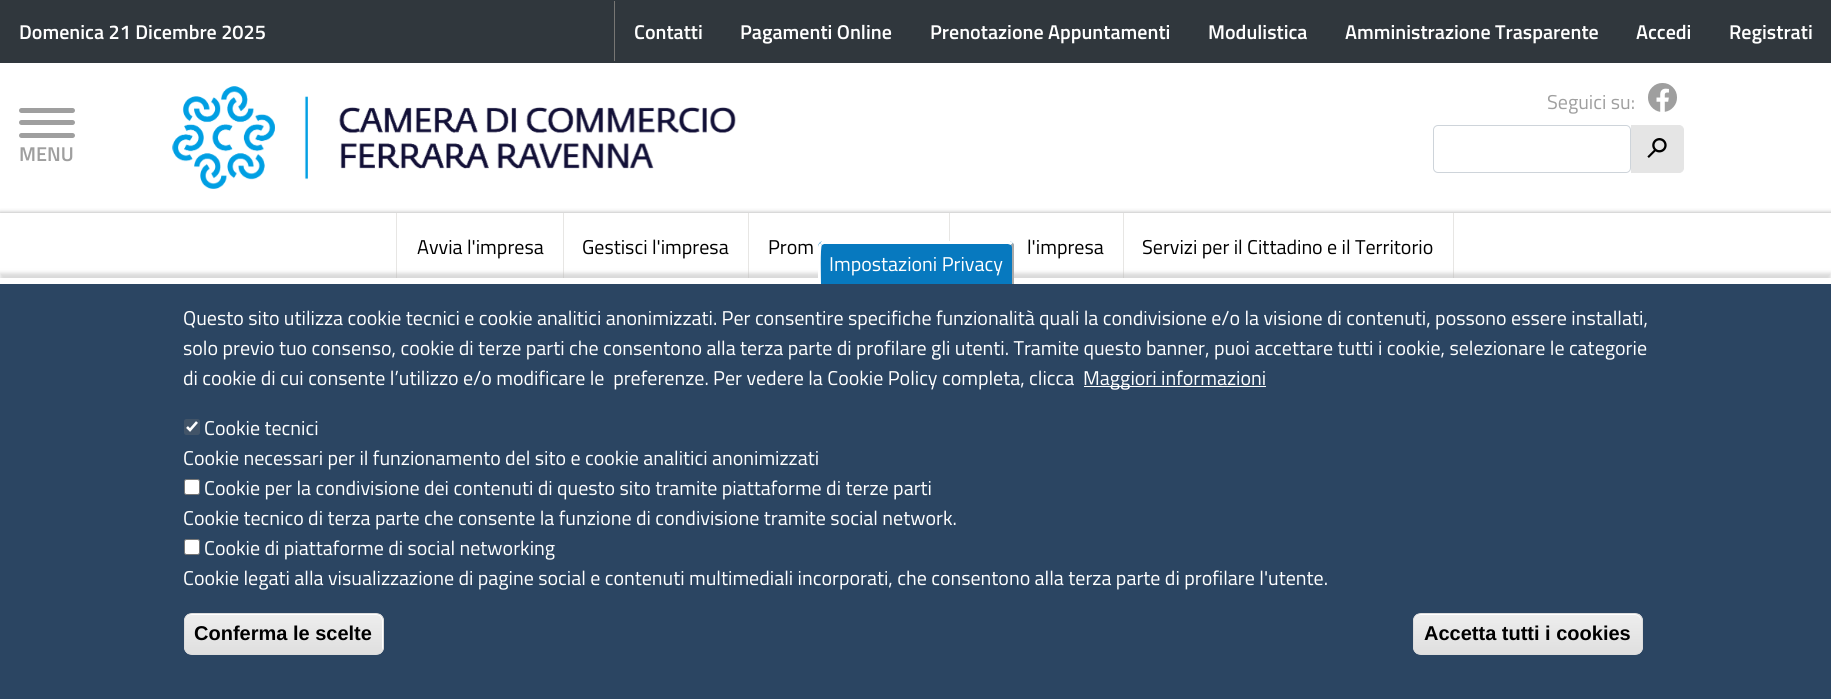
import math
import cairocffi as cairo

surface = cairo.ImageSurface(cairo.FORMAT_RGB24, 1831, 699)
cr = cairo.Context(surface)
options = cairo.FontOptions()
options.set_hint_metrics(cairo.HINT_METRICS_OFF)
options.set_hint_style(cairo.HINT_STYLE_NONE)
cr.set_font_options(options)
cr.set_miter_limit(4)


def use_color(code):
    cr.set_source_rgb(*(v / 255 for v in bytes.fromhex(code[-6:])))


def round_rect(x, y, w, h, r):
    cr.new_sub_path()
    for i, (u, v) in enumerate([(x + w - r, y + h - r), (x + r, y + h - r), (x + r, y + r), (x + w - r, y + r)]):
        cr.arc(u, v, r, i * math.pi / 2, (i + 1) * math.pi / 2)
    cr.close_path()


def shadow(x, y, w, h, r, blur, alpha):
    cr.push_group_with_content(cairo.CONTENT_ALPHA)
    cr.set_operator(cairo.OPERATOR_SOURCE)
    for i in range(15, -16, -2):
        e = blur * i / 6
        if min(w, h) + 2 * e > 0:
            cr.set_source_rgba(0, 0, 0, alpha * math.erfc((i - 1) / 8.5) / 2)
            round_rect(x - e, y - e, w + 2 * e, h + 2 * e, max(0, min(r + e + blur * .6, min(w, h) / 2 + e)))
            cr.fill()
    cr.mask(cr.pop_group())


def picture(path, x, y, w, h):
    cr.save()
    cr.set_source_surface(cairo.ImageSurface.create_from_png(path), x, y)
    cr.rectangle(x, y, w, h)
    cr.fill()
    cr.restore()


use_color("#30373d")
cr.paint()
cr.select_font_face("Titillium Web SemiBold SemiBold")
cr.set_font_size(20)
use_color("#ffffff")
cr.move_to(19, 39)
cr.show_text("Domenica 21 Dicembre 2025")
use_color("#777674")
cr.rectangle(614, 1, 1, 60)
cr.fill()
use_color("#ffffff")
cr.move_to(634, 39)
cr.show_text("Contatti")
cr.move_to(740, 39)
cr.show_text("Pagamenti Online")
cr.move_to(930, 39)
cr.show_text("Prenotazione Appuntamenti")
cr.move_to(1208, 39)
cr.show_text("Modulistica")
cr.move_to(1345, 39)
cr.show_text("Amministrazione Trasparente")
cr.move_to(1636, 39)
cr.show_text("Accedi")
cr.move_to(1729, 39)
cr.show_text("Registrati")
cr.rectangle(0, 63, 1831, 150)
cr.fill()
use_color("#9f9f9f")
round_rect(19, 133, 56, 5, 2.5)
cr.fill()
round_rect(19, 108, 56, 5, 2.5)
cr.fill()
round_rect(19, 120, 56, 5, 2.5)
cr.fill()
cr.move_to(19, 161)
cr.show_text("MENU")
picture("img1.png", 172, 86, 564, 103)
cr.select_font_face("Titillium Web")
cr.move_to(1547, 109)
cr.show_text("Seguici su:")
picture("img2.png", 1648, 83, 29, 29)
round_rect(1433.5, 125.5, 197, 47, 4.5)
use_color("#ced4da")
cr.set_line_width(1)
cr.stroke()
use_color("#e5e5e5")
cr.new_path()
cr.move_to(1631.5, 125.5)
cr.line_to(1679, 125.5)
cr.curve_to(1681.5, 125.5, 1683.5, 127.5, 1683.5, 130)
cr.line_to(1683.5, 168)
cr.curve_to(1683.5, 170.5, 1681.5, 172.5, 1679, 172.5)
cr.line_to(1631.5, 172.5)
cr.close_path()
cr.fill_preserve()
cr.stroke()
cr.select_font_face("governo")
use_color("#000000")
cr.move_to(1647, 158)
cr.show_text("h")
use_color("#000000")
shadow(0, 215, 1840, 75, 0, 3, 0.75)
use_color("#ffffff")
cr.rectangle(0, 213, 1831, 65)
cr.fill()
use_color("#e7e6e4")
cr.rectangle(396, 213, 1, 65)
cr.fill()
cr.rectangle(563, 213, 1, 65)
cr.fill()
cr.select_font_face("Titillium Web")
use_color("#000000")
cr.move_to(417, 254)
cr.show_text("Avvia l'impresa")
use_color("#e7e6e4")
cr.rectangle(748, 213, 1, 65)
cr.fill()
use_color("#000000")
cr.move_to(582, 254)
cr.show_text("Gestisci l'impresa")
use_color("#e7e6e4")
cr.rectangle(949, 213, 1, 28)
cr.fill()
use_color("#000000")
cr.move_to(768, 254)
cr.show_text("Prom")
use_color("#e7e6e4")
cr.rectangle(1123, 213, 1, 65)
cr.fill()
use_color("#000000")
cr.move_to(1027, 254)
cr.show_text("l'impresa")
use_color("#e7e6e4")
cr.rectangle(1453, 213, 1, 65)
cr.fill()
use_color("#000000")
cr.move_to(1142, 254)
cr.show_text("Servizi per il Cittadino e il Territorio")
use_color("#b4b4b4")
shadow(0, 273, 1831, 422, 0, 2, 0.5)
use_color("#2b4562")
cr.rectangle(0, 284, 1831, 415)
cr.fill()
use_color("#ffffff")
cr.rectangle(0, 278, 1831, 6)
cr.fill()
use_color("#0779bf")
cr.new_path()
cr.move_to(824, 241)
cr.line_to(1008, 241)
cr.curve_to(1011.5, 241, 1014, 243.5, 1014, 247)
cr.line_to(1014, 284)
cr.line_to(818, 284)
cr.line_to(818, 247)
cr.curve_to(818, 243.5, 820.5, 241, 824, 241)
cr.close_path()
cr.fill()
use_color("#ffffff")
cr.new_path()
cr.move_to(824, 244)
cr.line_to(822, 245)
cr.line_to(820, 243)
cr.line_to(822, 241)
cr.line_to(1010, 241)
cr.line_to(1013, 243)
cr.line_to(1011, 245)
cr.line_to(1008, 244)
cr.close_path()
cr.fill()
use_color("#aaaaaa")
cr.new_path()
cr.move_to(1012, 284)
cr.line_to(1012, 248)
cr.curve_to(1012, 246, 1011, 245, 1011, 245)
cr.line_to(1013, 243)
cr.curve_to(1014, 244, 1014, 246, 1014, 248)
cr.line_to(1014, 284)
cr.close_path()
cr.fill()
use_color("#ffffff")
cr.new_path()
cr.move_to(818, 284)
cr.line_to(818, 247)
cr.curve_to(818, 245, 819, 244, 820, 243)
cr.line_to(822, 245)
cr.curve_to(820, 247, 821, 279, 821, 284)
cr.close_path()
cr.fill()
cr.move_to(829, 271)
cr.show_text("Impostazioni Privacy")
cr.move_to(183, 325)
cr.show_text("Questo sito utilizza cookie tecnici e cookie analitici anonimizzati. Per consentire specifiche funzionalità quali la condivisione e/o la visione di contenuti, possono essere installati,")
cr.move_to(183, 355)
cr.show_text("solo previo tuo consenso, cookie di terze parti che consentono alla terza parte di profilare gli utenti. Tramite questo banner, puoi accettare tutti i cookie, selezionare le categorie")
cr.move_to(183, 385)
cr.show_text("di cookie di cui consente l’utilizzo e/o modificare le  preferenze. Per vedere la Cookie Policy completa, clicca")
cr.rectangle(1084, 386, 182, 1)
cr.fill()
cr.move_to(1083, 385)
cr.show_text("Maggiori informazioni")
use_color("#425468")
round_rect(184, 419, 16, 16, 2.5)
cr.fill()
cr.new_path()
cr.move_to(187, 427)
cr.line_to(190, 430)
cr.line_to(197, 422)
use_color("#ffffff")
cr.set_line_width(2.6)
cr.stroke()
cr.move_to(204, 435)
cr.show_text("Cookie tecnici")
cr.move_to(183, 465)
cr.show_text("Cookie necessari per il funzionamento del sito e cookie analitici anonimizzati")
round_rect(184.5, 479.5, 15, 15, 2)
cr.fill_preserve()
use_color("#767676")
cr.set_line_width(1)
cr.stroke()
use_color("#ffffff")
cr.move_to(204, 495)
cr.show_text("Cookie per la condivisione dei contenuti di questo sito tramite piattaforme di terze parti")
cr.move_to(183, 525)
cr.show_text("Cookie tecnico di terza parte che consente la funzione di condivisione tramite social network.")
round_rect(184.5, 539.5, 15, 15, 2)
cr.fill_preserve()
use_color("#767676")
cr.stroke()
use_color("#ffffff")
cr.move_to(204, 555)
cr.show_text("Cookie di piattaforme di social networking")
cr.move_to(183, 585)
cr.show_text("Cookie legati alla visualizzazione di pagine social e contenuti multimediali incorporati, che consentono alla terza parte di profilare l'utente.")
cr.save()
round_rect(184, 613, 200, 42, 8)
cr.clip()
gradient = cairo.LinearGradient(284, 614, 284, 654)
gradient.add_color_stop_rgba(0.05, 0.929, 0.929, 0.929, 1)
gradient.add_color_stop_rgba(1, 0.875, 0.875, 0.875, 1)
cr.set_source(gradient)
cr.rectangle(184, 614, 200, 40)
cr.fill()
cr.restore()
cr.new_path()
cr.move_to(191, 615)
cr.line_to(376, 615)
cr.curve_to(380, 615, 382, 618, 382, 621)
cr.line_to(382, 649)
cr.curve_to(382, 650, 382, 651, 381, 652)
cr.curve_to(382, 651, 383, 650, 383, 648)
cr.line_to(383, 620)
cr.curve_to(383, 617, 380, 614, 377, 614)
cr.line_to(191, 614)
cr.curve_to(188, 614, 185, 617, 185, 620)
cr.line_to(185, 621)
cr.curve_to(185, 618, 188, 615, 191, 615)
cr.close_path()
cr.fill()
round_rect(184.5, 613.5, 199, 41, 7.5)
use_color("#dcdcdc")
cr.stroke()
cr.select_font_face("Liberation Sans", cairo.FONT_SLANT_NORMAL, cairo.FONT_WEIGHT_BOLD)
use_color("#000000")
cr.move_to(194, 640)
cr.show_text("Conferma le scelte")
cr.save()
round_rect(1413, 613, 230, 42, 8)
cr.clip()
gradient = cairo.LinearGradient(1528, 614, 1528, 654)
gradient.add_color_stop_rgba(0.05, 0.929, 0.929, 0.929, 1)
gradient.add_color_stop_rgba(1, 0.875, 0.875, 0.875, 1)
cr.set_source(gradient)
cr.rectangle(1413, 614, 230, 40)
cr.fill()
cr.restore()
use_color("#ffffff")
cr.new_path()
cr.move_to(1420, 615)
cr.line_to(1635, 615)
cr.curve_to(1638, 615, 1641, 618, 1641, 621)
cr.line_to(1641, 620)
cr.curve_to(1641, 617, 1638, 614, 1635, 614)
cr.line_to(1420, 614)
cr.curve_to(1417, 614, 1414, 617, 1414, 620)
cr.line_to(1414, 621)
cr.curve_to(1414, 618, 1417, 615, 1420, 615)
cr.close_path()
cr.fill()
round_rect(1413.5, 613.5, 229, 41, 7.5)
use_color("#dcdcdc")
cr.stroke()
use_color("#000000")
cr.move_to(1424, 640)
cr.show_text("Accetta tutti i cookies")
surface.write_to_png("result.png")
